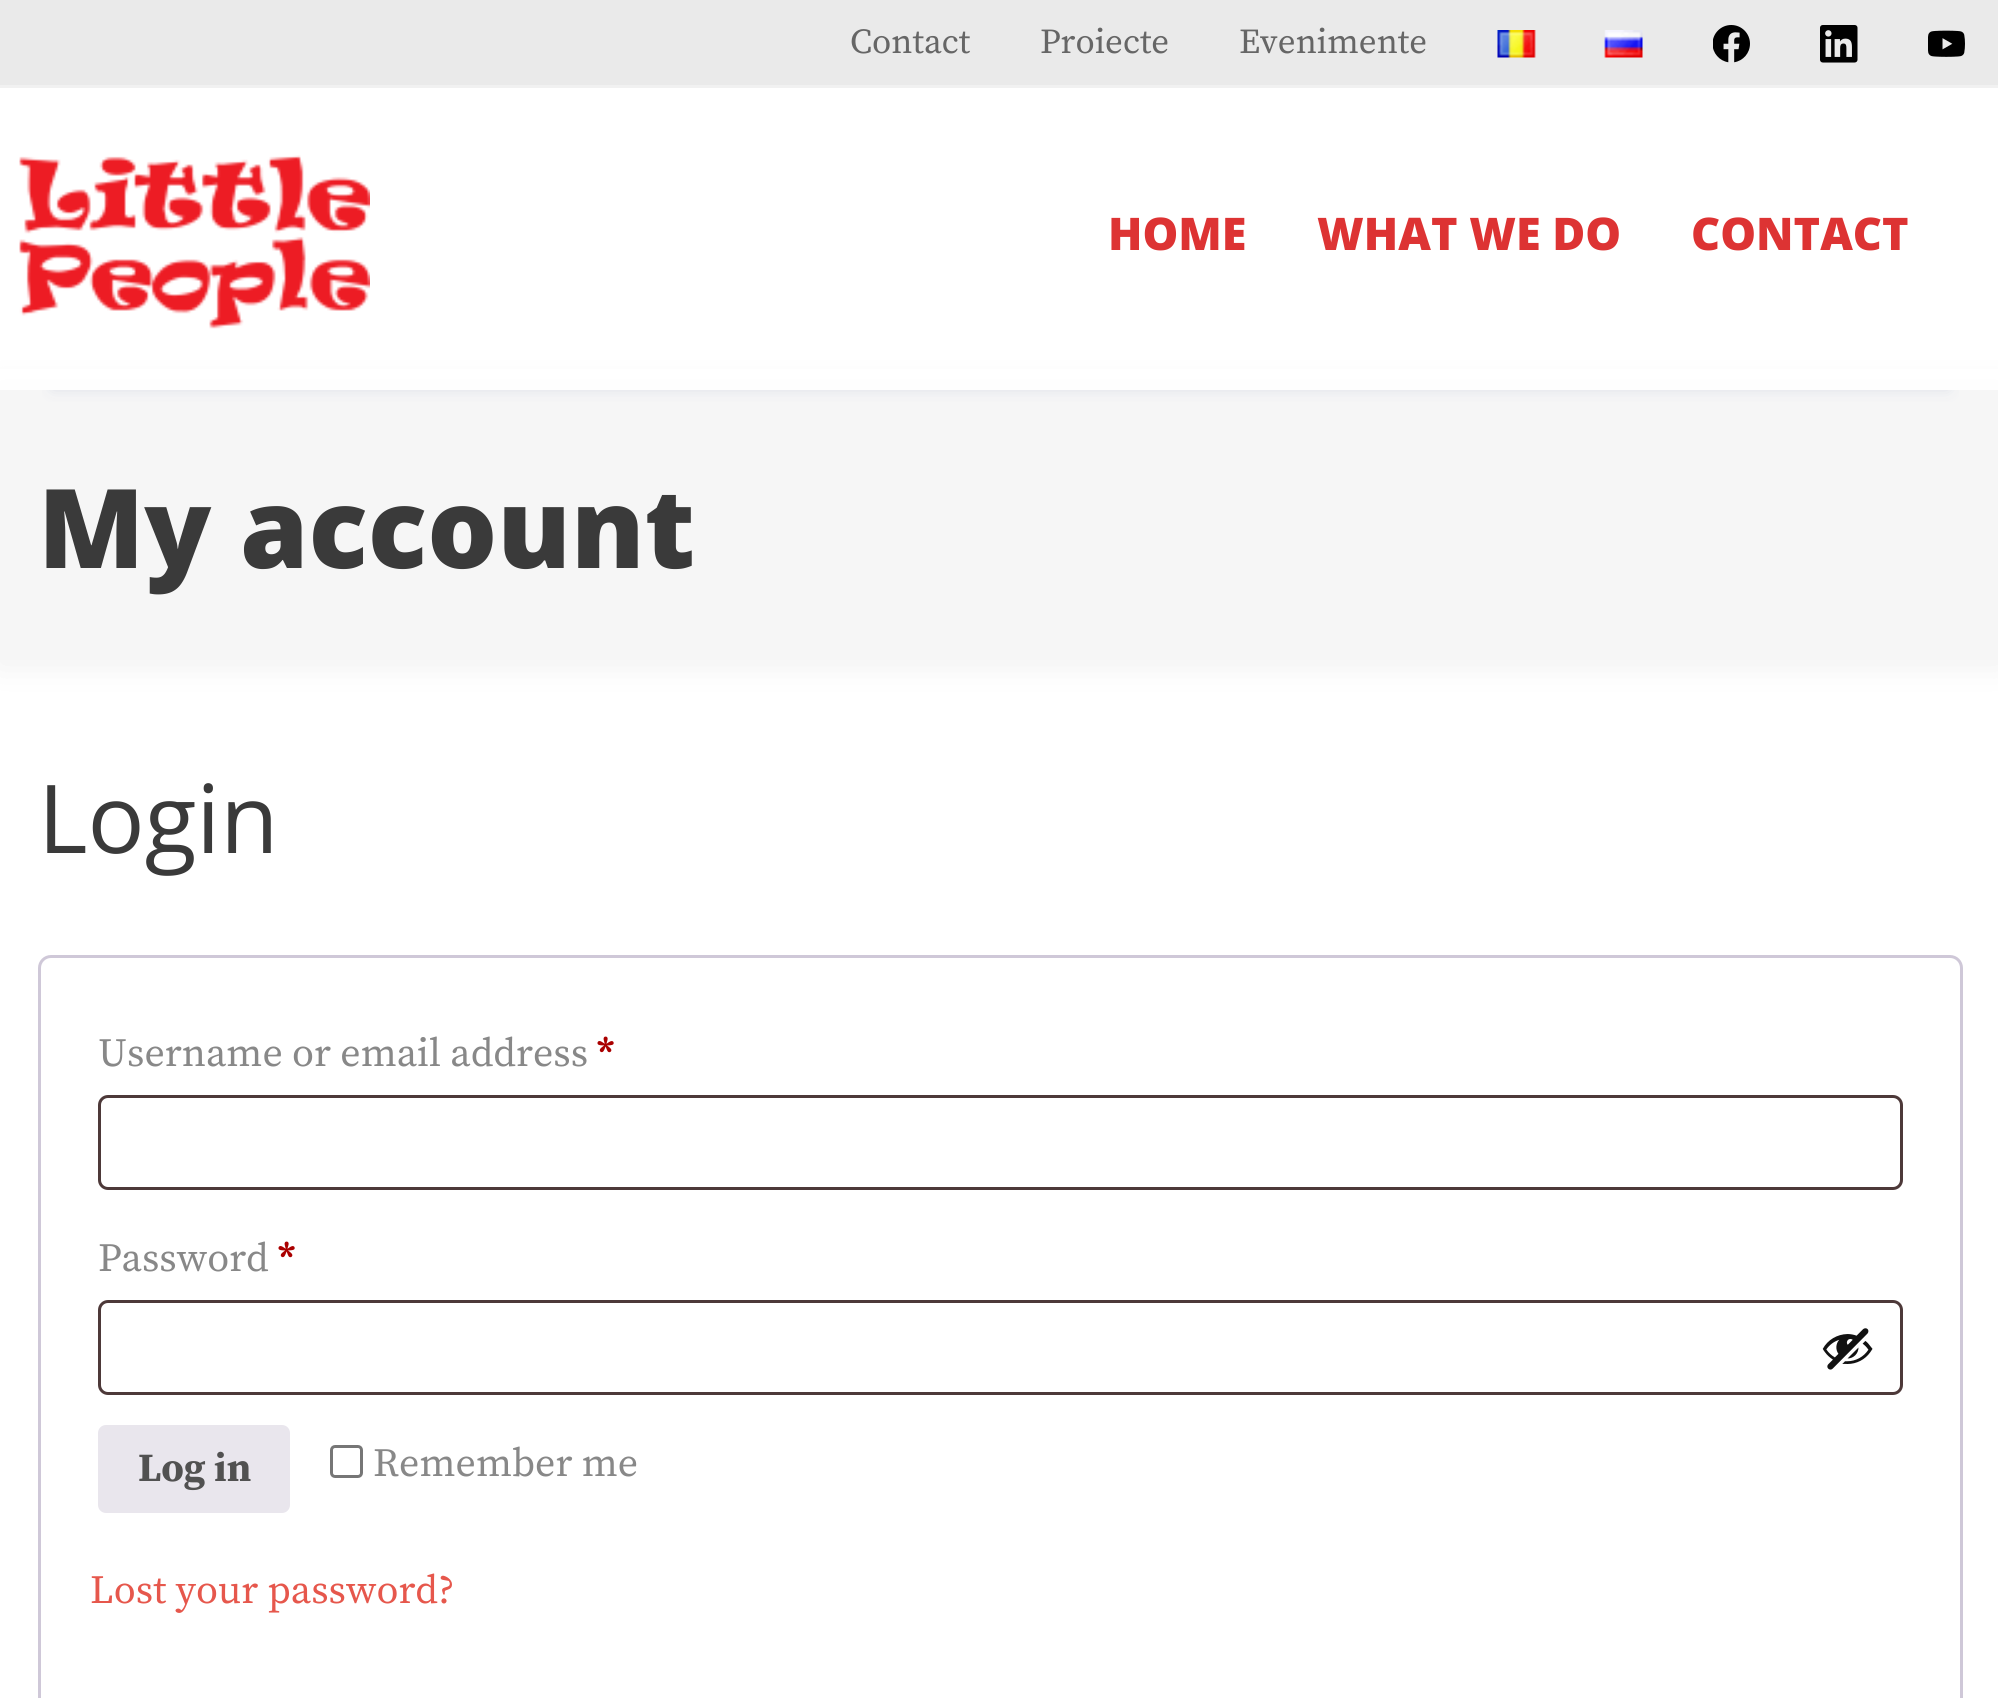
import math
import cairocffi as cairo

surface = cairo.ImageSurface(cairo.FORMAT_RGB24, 1998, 1698)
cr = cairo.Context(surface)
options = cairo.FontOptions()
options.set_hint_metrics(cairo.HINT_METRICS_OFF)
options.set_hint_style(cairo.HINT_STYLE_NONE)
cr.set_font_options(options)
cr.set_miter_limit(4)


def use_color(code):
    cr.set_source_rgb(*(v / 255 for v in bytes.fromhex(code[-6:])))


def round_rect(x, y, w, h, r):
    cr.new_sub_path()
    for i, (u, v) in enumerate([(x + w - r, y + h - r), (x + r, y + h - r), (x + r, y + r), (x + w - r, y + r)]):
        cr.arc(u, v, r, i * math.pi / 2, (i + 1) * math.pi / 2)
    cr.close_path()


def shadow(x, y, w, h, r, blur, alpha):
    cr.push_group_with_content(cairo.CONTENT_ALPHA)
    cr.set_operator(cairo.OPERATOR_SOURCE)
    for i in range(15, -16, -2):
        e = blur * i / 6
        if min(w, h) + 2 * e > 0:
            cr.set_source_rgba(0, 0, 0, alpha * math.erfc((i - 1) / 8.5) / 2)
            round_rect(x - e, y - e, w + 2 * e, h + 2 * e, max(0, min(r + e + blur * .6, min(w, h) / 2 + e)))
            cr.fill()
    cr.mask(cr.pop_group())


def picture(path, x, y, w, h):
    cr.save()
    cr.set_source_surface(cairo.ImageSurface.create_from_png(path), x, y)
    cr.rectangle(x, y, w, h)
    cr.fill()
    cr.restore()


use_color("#ffffff")
cr.paint()
use_color("#eaeaea")
cr.rectangle(0, 0, 1998, 85)
cr.fill()
use_color("#f1f1f1")
cr.rectangle(0, 85, 1998, 3)
cr.fill()
cr.select_font_face("Source Serif Pro")
cr.set_font_size(35)
use_color("#666666")
cr.move_to(850, 53)
cr.show_text("Contact")
cr.move_to(1040, 53)
cr.show_text("Proiecte")
cr.move_to(1239, 53)
cr.show_text("Evenimente")
picture("img1.png", 1497, 30, 39, 28)
picture("img2.png", 1604, 30, 39, 28)
picture("img3.png", 1713, 25, 37, 38)
picture("img4.png", 1820, 25, 38, 38)
picture("img5.png", 1928, 30, 37, 27)
use_color("#000000")
shadow(-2, 388, 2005, 275, 0, 19, 0.07)
cr.set_source_rgba(1, 1, 1, 0.9)
cr.rectangle(0, 369, 1998, 21)
cr.fill()
use_color("#f6f6f6")
cr.rectangle(0, 390, 1998, 270)
cr.fill()
cr.save()
cr.rectangle(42, 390, 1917, 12)
cr.clip()
use_color("#cacfde")
shadow(53, 115, 1895, 273, 0, 7.5, 0.68)
cr.restore()
picture("img6.png", 19, 155, 351, 174)
cr.select_font_face("Open Sans ExtraBold")
cr.set_font_size(45)
use_color("#dd3333")
cr.move_to(1108, 250)
cr.show_text("HOME")
cr.move_to(1317, 250)
cr.show_text("WHAT WE DO")
cr.move_to(1691, 250)
cr.show_text("CONTACT")
cr.set_font_size(110)
use_color("#3a3a3a")
cr.move_to(38, 568)
cr.show_text("My account")
cr.select_font_face("Open Sans")
cr.set_font_size(95)
cr.move_to(38, 853)
cr.show_text("Login")
round_rect(39.5, 956.5, 1922, 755, 11.5)
use_color("#cfc8d8")
cr.set_line_width(3)
cr.stroke()
cr.select_font_face("Source Serif Pro")
cr.set_font_size(40)
use_color("#888888")
cr.move_to(98, 1066)
cr.show_text("Username or email address")
cr.select_font_face("Source Serif Pro", cairo.FONT_SLANT_NORMAL, cairo.FONT_WEIGHT_BOLD)
use_color("#aa0000")
cr.move_to(597, 1066)
cr.show_text("*")
round_rect(99.5, 1096.5, 1802, 92, 8.5)
use_color("#4d3939")
cr.stroke()
cr.select_font_face("Source Serif Pro")
use_color("#888888")
cr.move_to(98, 1271)
cr.show_text("Password")
cr.select_font_face("Source Serif Pro", cairo.FONT_SLANT_NORMAL, cairo.FONT_WEIGHT_BOLD)
use_color("#aa0000")
cr.move_to(278, 1271)
cr.show_text("*")
round_rect(99.5, 1301.5, 1802, 92, 8.5)
use_color("#4d3939")
cr.stroke()
picture("img7.png", 1822, 1328, 51, 42)
use_color("#e9e6ed")
round_rect(98, 1425, 192, 88, 8)
cr.fill()
use_color("#515151")
cr.move_to(138, 1481)
cr.show_text("Log in")
round_rect(331.5, 1446.5, 30, 30, 3.5)
use_color("#767676")
cr.stroke()
cr.select_font_face("Source Serif Pro")
use_color("#888888")
cr.move_to(373, 1476)
cr.show_text("Remember me")
use_color("#e6574c")
cr.move_to(90, 1603)
cr.show_text("Lost your password?")
surface.write_to_png("result.png")
